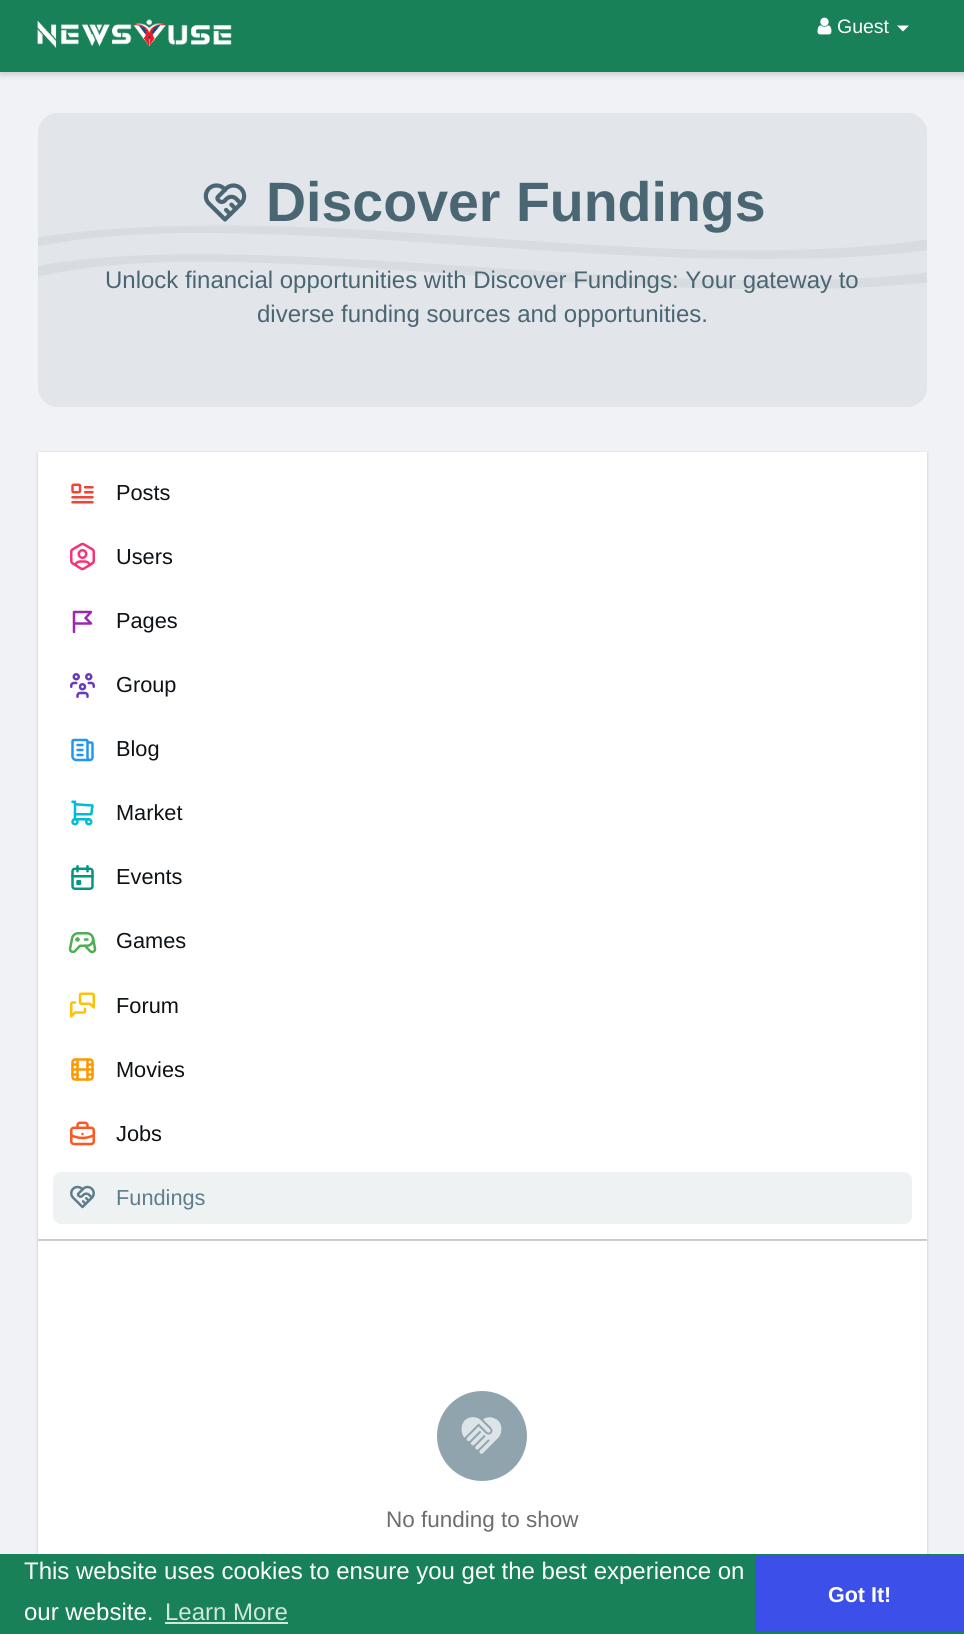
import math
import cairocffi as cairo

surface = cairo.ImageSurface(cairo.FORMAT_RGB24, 964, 1634)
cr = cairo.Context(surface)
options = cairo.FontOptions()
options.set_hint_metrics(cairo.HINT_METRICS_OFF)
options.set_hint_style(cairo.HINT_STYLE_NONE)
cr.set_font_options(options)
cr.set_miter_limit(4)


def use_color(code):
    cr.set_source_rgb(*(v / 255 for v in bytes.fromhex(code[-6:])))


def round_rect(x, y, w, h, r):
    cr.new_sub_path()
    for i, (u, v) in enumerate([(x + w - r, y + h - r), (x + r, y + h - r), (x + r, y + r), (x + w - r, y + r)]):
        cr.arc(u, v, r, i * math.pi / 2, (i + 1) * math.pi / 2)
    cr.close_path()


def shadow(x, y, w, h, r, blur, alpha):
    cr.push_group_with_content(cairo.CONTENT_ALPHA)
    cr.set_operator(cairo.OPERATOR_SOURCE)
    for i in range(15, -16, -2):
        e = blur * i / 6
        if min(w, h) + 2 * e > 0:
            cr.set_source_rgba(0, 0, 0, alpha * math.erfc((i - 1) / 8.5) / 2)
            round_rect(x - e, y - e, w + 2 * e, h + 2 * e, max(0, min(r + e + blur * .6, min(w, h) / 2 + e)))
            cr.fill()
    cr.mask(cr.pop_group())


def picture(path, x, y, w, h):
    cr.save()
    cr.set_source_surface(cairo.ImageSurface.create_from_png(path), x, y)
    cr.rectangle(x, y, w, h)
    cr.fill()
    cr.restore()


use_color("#f0f2f5")
cr.paint()
use_color("#000000")
shadow(0, 3, 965, 72, 0, 3, 0.15)
use_color("#198157")
cr.rectangle(0, 0, 964, 72)
cr.fill()
picture("img1.png", 37, 19, 195, 29)
picture("img2.png", 817, 17, 15, 18)
cr.select_font_face("Liberation Sans")
cr.set_font_size(19.5)
use_color("#ffffff")
cr.move_to(837, 33)
cr.show_text("Guest")
cr.new_path()
cr.move_to(897, 25.5)
cr.line_to(909, 25.5)
cr.line_to(903, 31.5)
cr.close_path()
cr.fill()
use_color("#e2e5ea")
round_rect(38, 113, 889, 294, 20)
cr.fill()
picture("img3.png", 203, 183, 44, 39)
cr.select_font_face("Liberation Sans", cairo.FONT_SLANT_NORMAL, cairo.FONT_WEIGHT_BOLD)
cr.set_font_size(55.5)
use_color("#4a6673")
cr.move_to(266, 221)
cr.show_text("Discover Fundings")
cr.select_font_face("Liberation Sans")
cr.set_font_size(24)
cr.move_to(105, 288)
cr.show_text("Unlock financial opportunities with Discover Fundings: Your gateway to")
picture("img4.png", 38, 225, 889, 64)
cr.move_to(257, 322)
cr.show_text("diverse funding sources and opportunities.")
use_color("#000000")
shadow(38, 453, 889, 788, 0, 1.5, 0.2)
use_color("#ffffff")
cr.rectangle(38, 452, 889, 787)
cr.fill()
picture("img5.png", 71, 483, 23, 21)
cr.set_font_size(21.75)
use_color("#0d1216")
cr.move_to(116, 500)
cr.show_text("Posts")
picture("img6.png", 70, 542, 25, 29)
cr.move_to(116, 564)
cr.show_text("Users")
cr.new_path()
cr.move_to(74, 623.5)
cr.line_to(91, 623.5)
cr.line_to(85.5, 618)
cr.line_to(91, 612)
cr.line_to(74, 612)
cr.line_to(74, 632)
use_color("#9c27b0")
cr.set_line_width(2.5)
cr.set_line_cap(cairo.LINE_CAP_ROUND)
cr.set_line_join(cairo.LINE_JOIN_ROUND)
cr.stroke()
use_color("#0d1216")
cr.move_to(116, 628)
cr.show_text("Pages")
picture("img7.png", 70, 673, 25, 25)
cr.move_to(116, 692)
cr.show_text("Group")
picture("img8.png", 71, 738, 23, 24)
cr.move_to(116, 756)
cr.show_text("Blog")
picture("img9.png", 71, 800, 23, 26)
cr.move_to(116, 820)
cr.show_text("Market")
picture("img10.png", 71, 865, 23, 25)
cr.move_to(116, 884)
cr.show_text("Events")
picture("img11.png", 68, 932, 29, 22)
cr.move_to(116, 948)
cr.show_text("Games")
picture("img12.png", 70, 992, 25, 26)
cr.move_to(116, 1013)
cr.show_text("Forum")
picture("img13.png", 71, 1058, 23, 23)
cr.move_to(116, 1077)
cr.show_text("Movies")
picture("img14.png", 70, 1121, 25, 25)
cr.move_to(116, 1141)
cr.show_text("Jobs")
use_color("#eff2f3")
round_rect(53, 1172, 859, 52, 8)
cr.fill()
picture("img15.png", 70, 1185, 25, 24)
use_color("#607d8b")
cr.move_to(116, 1205)
cr.show_text("Fundings")
use_color("#000000")
shadow(38, 1242, 889, 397, 0, 1.5, 0.2)
use_color("#ffffff")
cr.rectangle(38, 1241, 889, 313)
cr.fill()
use_color("#90a4ae")
cr.arc(482, 1436, 45, 0, 2 * math.pi)
cr.fill()
picture("img16.png", 461, 1417, 41, 37)
cr.set_font_size(22.5)
use_color("#6d6d6d")
cr.move_to(386, 1527)
cr.show_text("No funding to show")
use_color("#198157")
cr.rectangle(0, 1554, 964, 80)
cr.fill()
cr.set_font_size(24)
use_color("#ffffff")
cr.move_to(24, 1579)
cr.show_text("This website uses cookies to ensure you get the best experience on")
cr.move_to(24, 1620)
cr.show_text("our website.")
use_color("#d1e6dd")
cr.move_to(165, 1620)
cr.show_text("Learn More")
cr.rectangle(165, 1622, 123, 2)
cr.fill()
use_color("#3c50e9")
cr.rectangle(755, 1556, 209, 76)
cr.fill()
cr.select_font_face("Liberation Sans", cairo.FONT_SLANT_NORMAL, cairo.FONT_WEIGHT_BOLD)
cr.set_font_size(21.5)
use_color("#ffffff")
cr.move_to(828, 1602)
cr.show_text("Got It!")
surface.write_to_png("result.png")
